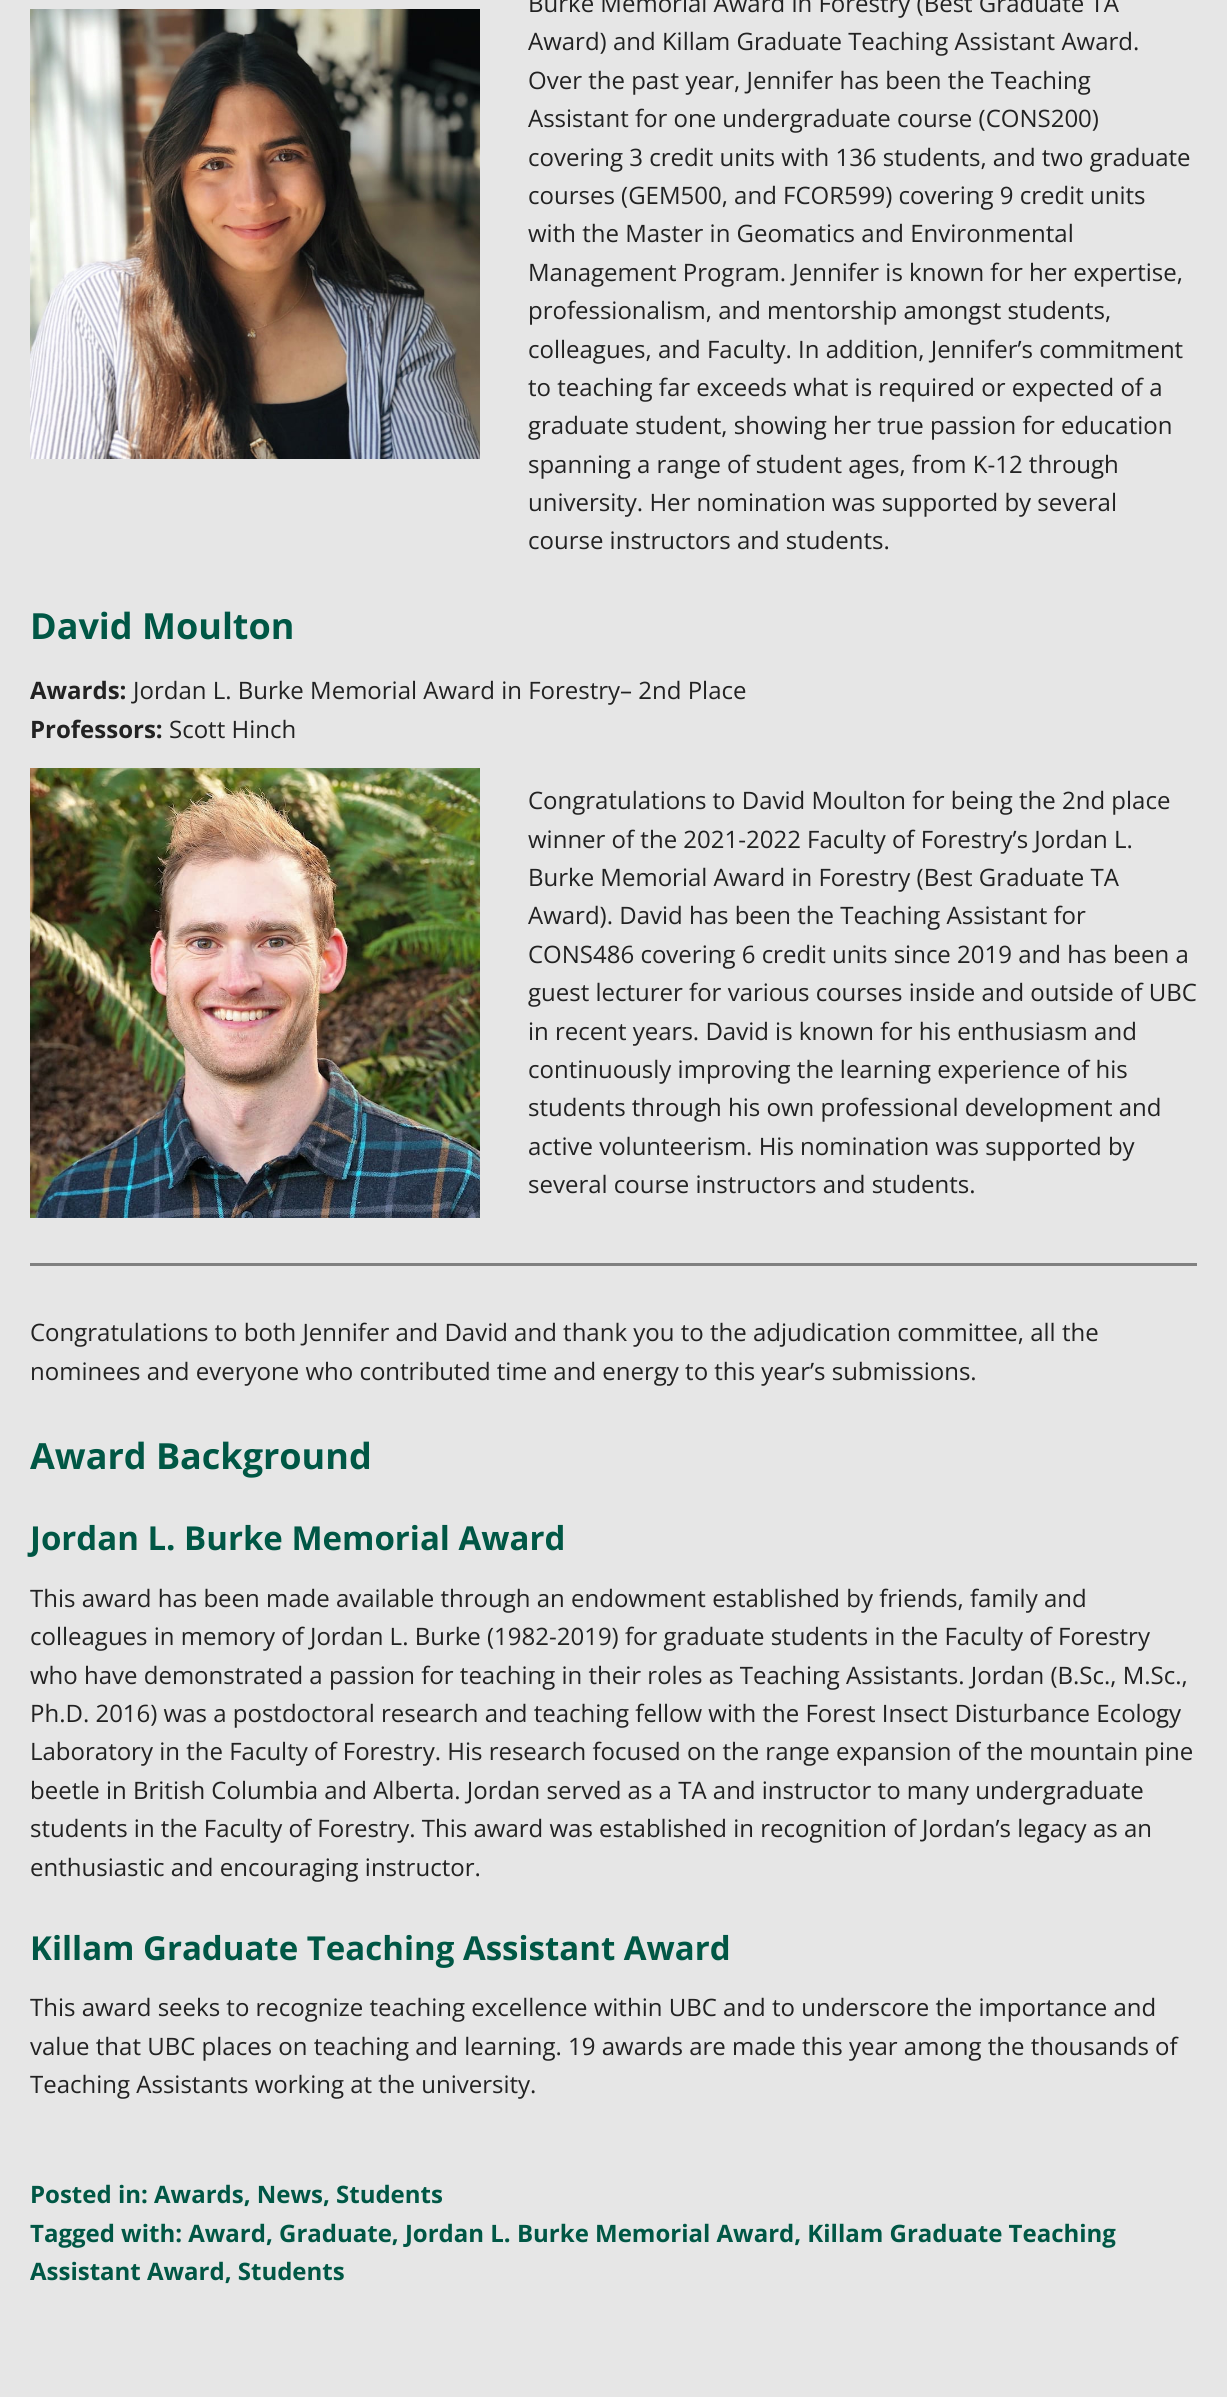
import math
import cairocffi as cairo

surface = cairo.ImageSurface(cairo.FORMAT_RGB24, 1227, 2397)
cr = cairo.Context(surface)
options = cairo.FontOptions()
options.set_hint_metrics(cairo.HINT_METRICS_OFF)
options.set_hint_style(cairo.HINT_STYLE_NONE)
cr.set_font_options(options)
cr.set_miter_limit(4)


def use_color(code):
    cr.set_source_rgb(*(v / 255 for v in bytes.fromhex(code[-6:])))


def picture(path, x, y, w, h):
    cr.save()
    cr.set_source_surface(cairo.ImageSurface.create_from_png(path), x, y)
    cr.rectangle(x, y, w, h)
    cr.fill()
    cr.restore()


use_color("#e6e6e6")
cr.paint()
picture("img1.png", 30, 9, 450, 450)
cr.select_font_face("Open Sans")
cr.set_font_size(24)
use_color("#222222")
cr.move_to(528, 12)
cr.show_text("Burke Memorial Award in Forestry (Best Graduate TA")
cr.move_to(528, 50)
cr.show_text("Award) and Killam Graduate Teaching Assistant Award.")
cr.move_to(528, 89)
cr.show_text("Over the past year, Jennifer has been the Teaching")
cr.move_to(528, 127)
cr.show_text("Assistant for one undergraduate course (CONS200)")
cr.move_to(528, 166)
cr.show_text("covering 3 credit units with 136 students, and two graduate")
cr.move_to(528, 204)
cr.show_text("courses (GEM500, and FCOR599) covering 9 credit units")
cr.move_to(528, 242)
cr.show_text("with the Master in Geomatics and Environmental")
cr.move_to(528, 281)
cr.show_text("Management Program. Jennifer is known for her expertise,")
cr.move_to(528, 319)
cr.show_text("professionalism, and mentorship amongst students,")
cr.move_to(528, 358)
cr.show_text("colleagues, and Faculty. In addition, Jennifer’s commitment")
cr.move_to(528, 396)
cr.show_text("to teaching far exceeds what is required or expected of a")
cr.move_to(528, 434)
cr.show_text("graduate student, showing her true passion for education")
cr.move_to(528, 473)
cr.show_text("spanning a range of student ages, from K-12 through")
cr.move_to(528, 511)
cr.show_text("university. Her nomination was supported by several")
cr.move_to(528, 549)
cr.show_text("course instructors and students.")
cr.select_font_face("Open Sans", cairo.FONT_SLANT_NORMAL, cairo.FONT_WEIGHT_BOLD)
cr.set_font_size(36)
use_color("#005745")
cr.move_to(30, 639)
cr.show_text("David Moulton")
cr.set_font_size(24)
use_color("#222222")
cr.move_to(30, 699)
cr.show_text("Awards:")
cr.select_font_face("Open Sans")
cr.move_to(133, 699)
cr.show_text("Jordan L. Burke Memorial Award in Forestry– 2nd Place")
cr.select_font_face("Open Sans", cairo.FONT_SLANT_NORMAL, cairo.FONT_WEIGHT_BOLD)
cr.move_to(30, 738)
cr.show_text("Professors:")
cr.select_font_face("Open Sans")
cr.move_to(169, 738)
cr.show_text("Scott Hinch")
picture("img2.png", 30, 768, 450, 450)
cr.move_to(528, 809)
cr.show_text("Congratulations to David Moulton for being the 2nd place")
cr.move_to(528, 848)
cr.show_text("winner of the 2021-2022 Faculty of Forestry’s Jordan L.")
cr.move_to(528, 886)
cr.show_text("Burke Memorial Award in Forestry (Best Graduate TA")
cr.move_to(528, 924)
cr.show_text("Award). David has been the Teaching Assistant for")
cr.move_to(528, 963)
cr.show_text("CONS486 covering 6 credit units since 2019 and has been a")
cr.move_to(528, 1001)
cr.show_text("guest lecturer for various courses inside and outside of UBC")
cr.move_to(528, 1040)
cr.show_text("in recent years. David is known for his enthusiasm and")
cr.move_to(528, 1078)
cr.show_text("continuously improving the learning experience of his")
cr.move_to(528, 1116)
cr.show_text("students through his own professional development and")
cr.move_to(528, 1155)
cr.show_text("active volunteerism. His nomination was supported by")
cr.move_to(528, 1193)
cr.show_text("several course instructors and students.")
use_color("#808080")
cr.rectangle(30, 1263, 1167, 3)
cr.fill()
use_color("#222222")
cr.move_to(30, 1341)
cr.show_text("Congratulations to both Jennifer and David and thank you to the adjudication committee, all the")
cr.move_to(30, 1380)
cr.show_text("nominees and everyone who contributed time and energy to this year’s submissions.")
cr.select_font_face("Open Sans", cairo.FONT_SLANT_NORMAL, cairo.FONT_WEIGHT_BOLD)
cr.set_font_size(36)
use_color("#005745")
cr.move_to(30, 1469)
cr.show_text("Award Background")
cr.set_font_size(33)
cr.move_to(30, 1550)
cr.show_text("Jordan L. Burke Memorial Award")
cr.select_font_face("Open Sans")
cr.set_font_size(24)
use_color("#222222")
cr.move_to(30, 1607)
cr.show_text("This award has been made available through an endowment established by friends, family and")
cr.move_to(30, 1645)
cr.show_text("colleagues in memory of Jordan L. Burke (1982-2019) for graduate students in the Faculty of Forestry")
cr.move_to(30, 1684)
cr.show_text("who have demonstrated a passion for teaching in their roles as Teaching Assistants. Jordan (B.Sc., M.Sc.,")
cr.move_to(30, 1722)
cr.show_text("Ph.D. 2016) was a postdoctoral research and teaching fellow with the Forest Insect Disturbance Ecology")
cr.move_to(30, 1760)
cr.show_text("Laboratory in the Faculty of Forestry. His research focused on the range expansion of the mountain pine")
cr.move_to(30, 1799)
cr.show_text("beetle in British Columbia and Alberta. Jordan served as a TA and instructor to many undergraduate")
cr.move_to(30, 1837)
cr.show_text("students in the Faculty of Forestry. This award was established in recognition of Jordan’s legacy as an")
cr.move_to(30, 1876)
cr.show_text("enthusiastic and encouraging instructor.")
cr.select_font_face("Open Sans", cairo.FONT_SLANT_NORMAL, cairo.FONT_WEIGHT_BOLD)
cr.set_font_size(33)
use_color("#005745")
cr.move_to(30, 1960)
cr.show_text("Killam Graduate Teaching Assistant Award")
cr.select_font_face("Open Sans")
cr.set_font_size(24)
use_color("#222222")
cr.move_to(30, 2016)
cr.show_text("This award seeks to recognize teaching excellence within UBC and to underscore the importance and")
cr.move_to(30, 2055)
cr.show_text("value that UBC places on teaching and learning. 19 awards are made this year among the thousands of")
cr.move_to(30, 2093)
cr.show_text("Teaching Assistants working at the university.")
cr.select_font_face("Open Sans", cairo.FONT_SLANT_NORMAL, cairo.FONT_WEIGHT_BOLD)
use_color("#005745")
cr.move_to(30, 2203)
cr.show_text("Posted in: Awards, News, Students")
cr.move_to(30, 2242)
cr.show_text("Tagged with: Award, Graduate, Jordan L. Burke Memorial Award, Killam Graduate Teaching")
cr.move_to(30, 2280)
cr.show_text("Assistant Award, Students")
surface.write_to_png("result.png")
